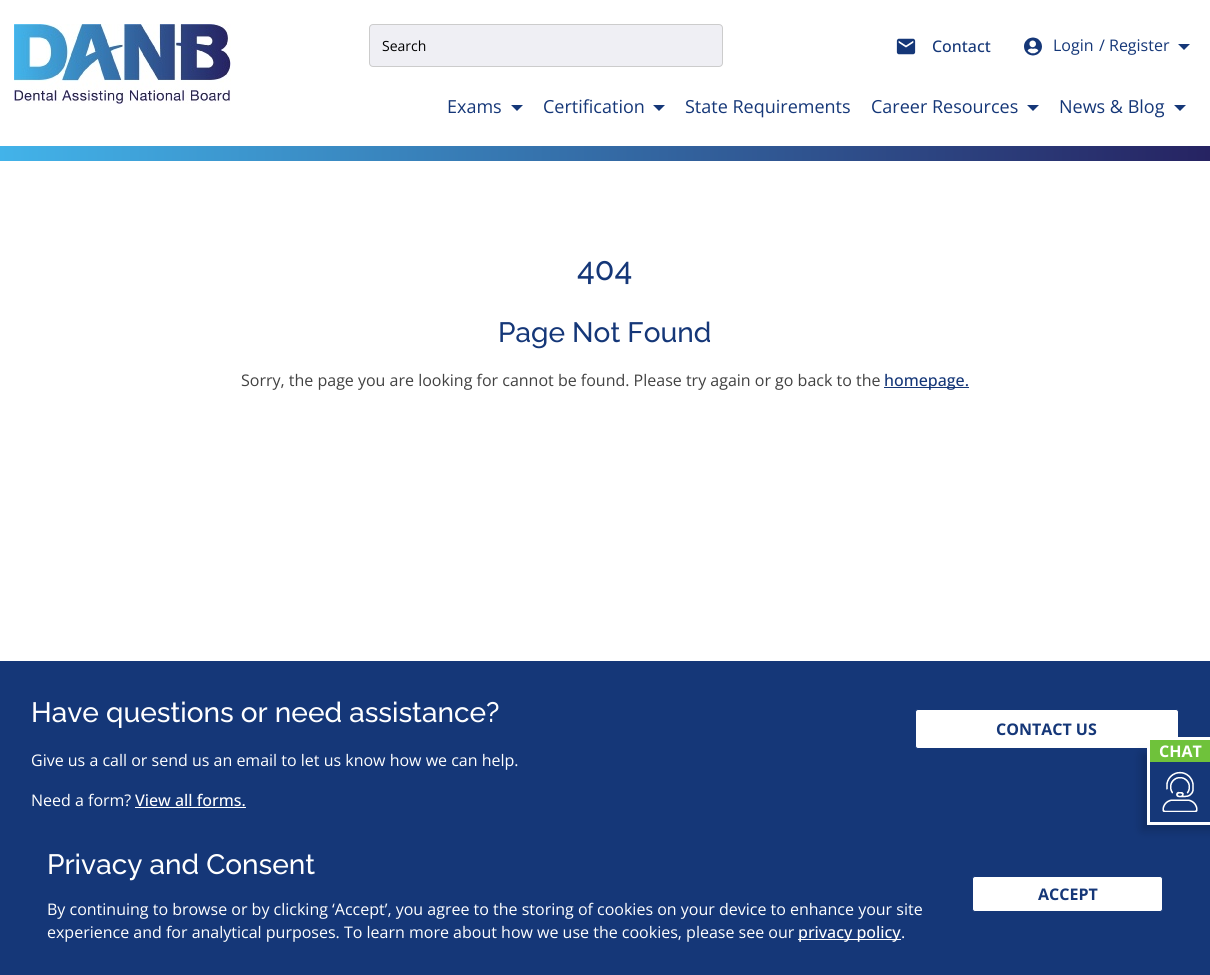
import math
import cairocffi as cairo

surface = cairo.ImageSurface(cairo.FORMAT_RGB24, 1210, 975)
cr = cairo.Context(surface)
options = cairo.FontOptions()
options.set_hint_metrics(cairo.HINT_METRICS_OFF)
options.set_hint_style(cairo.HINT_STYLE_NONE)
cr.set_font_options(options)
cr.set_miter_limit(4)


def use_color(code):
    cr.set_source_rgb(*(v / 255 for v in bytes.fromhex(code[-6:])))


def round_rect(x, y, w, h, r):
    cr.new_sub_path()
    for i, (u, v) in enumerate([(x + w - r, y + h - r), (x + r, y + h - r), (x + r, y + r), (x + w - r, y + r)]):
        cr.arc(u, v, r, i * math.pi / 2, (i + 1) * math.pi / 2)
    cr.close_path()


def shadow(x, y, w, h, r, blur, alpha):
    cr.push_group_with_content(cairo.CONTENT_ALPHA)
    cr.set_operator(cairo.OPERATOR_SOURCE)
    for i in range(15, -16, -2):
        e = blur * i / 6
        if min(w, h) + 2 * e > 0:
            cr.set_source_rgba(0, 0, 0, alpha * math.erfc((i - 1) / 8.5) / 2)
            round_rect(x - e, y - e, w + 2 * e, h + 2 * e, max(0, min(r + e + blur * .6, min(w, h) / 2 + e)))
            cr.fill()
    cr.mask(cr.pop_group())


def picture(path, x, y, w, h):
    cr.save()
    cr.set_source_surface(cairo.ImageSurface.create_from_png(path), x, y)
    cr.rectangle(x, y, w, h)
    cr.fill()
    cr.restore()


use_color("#ffffff")
cr.paint()
picture("img1.png", 14, 24, 217, 80)
use_color("#efeff4")
round_rect(369.5, 24.5, 353, 42, 3.5)
cr.fill_preserve()
use_color("#cccccc")
cr.set_line_width(1)
cr.stroke()
cr.select_font_face("Open Sans")
cr.set_font_size(14)
use_color("#000000")
cr.move_to(382, 51)
cr.show_text("Search")
picture("img2.png", 896, 38, 20, 17)
cr.select_font_face("Open Sans Medium")
cr.set_font_size(16)
use_color("#153778")
cr.move_to(932, 52)
cr.show_text("Contact")
picture("img3.png", 1024, 37, 18, 19)
cr.select_font_face("Open Sans")
cr.move_to(1053, 51)
cr.show_text("Login")
cr.move_to(1099, 51)
cr.show_text("/")
cr.move_to(1109, 51)
cr.show_text("Register")
cr.new_path()
cr.move_to(1178, 44)
cr.line_to(1190, 44)
cr.line_to(1184, 50)
cr.close_path()
cr.fill()
cr.set_font_size(18)
cr.move_to(447, 113)
cr.show_text("Exams")
cr.new_path()
cr.move_to(511, 105)
cr.line_to(523, 105)
cr.line_to(517, 111)
cr.close_path()
cr.fill()
cr.move_to(543, 113)
cr.show_text("Certification")
cr.new_path()
cr.move_to(653, 105)
cr.line_to(665, 105)
cr.line_to(659, 111)
cr.close_path()
cr.fill()
cr.move_to(685, 113)
cr.show_text("State Requirements")
cr.move_to(871, 113)
cr.show_text("Career Resources")
cr.new_path()
cr.move_to(1027, 105)
cr.line_to(1039, 105)
cr.line_to(1033, 111)
cr.close_path()
cr.fill()
cr.move_to(1059, 113)
cr.show_text("News & Blog")
cr.new_path()
cr.move_to(1174, 105)
cr.line_to(1186, 105)
cr.line_to(1180, 111)
cr.close_path()
cr.fill()
gradient = cairo.LinearGradient(1210, 153, 0, 154)
gradient.add_color_stop_rgba(0, 0.149, 0.137, 0.384, 1)
gradient.add_color_stop_rgba(1, 0.259, 0.702, 0.914, 1)
cr.set_source(gradient)
cr.rectangle(0, 146, 1210, 15)
cr.fill()
use_color("#153778")
cr.rectangle(0, 661, 1210, 314)
cr.fill()
use_color("#ffffff")
round_rect(915.5, 709.5, 263, 39, 2.5)
cr.fill_preserve()
use_color("#153778")
cr.stroke()
cr.save()
cr.set_fill_rule(cairo.FILL_RULE_EVEN_ODD)
cr.new_path()
cr.move_to(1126, 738)
cr.line_to(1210, 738)
cr.line_to(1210, 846)
cr.line_to(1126, 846)
cr.close_path()
cr.move_to(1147, 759)
cr.line_to(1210, 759)
cr.line_to(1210, 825)
cr.line_to(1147, 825)
cr.close_path()
cr.clip()
use_color("#000000")
shadow(1142, 754, 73, 76, 0, 5, 0.2)
cr.restore()
use_color("#ffffff")
cr.rectangle(1147, 822, 63, 3)
cr.fill()
cr.rectangle(1147, 746, 3, 79)
cr.fill()
use_color("#6fc23b")
cr.rectangle(1150, 740, 60, 22)
cr.fill()
use_color("#ffffff")
cr.rectangle(1178, 737, 32, 3)
cr.fill()
cr.select_font_face("Open Sans", cairo.FONT_SLANT_NORMAL, cairo.FONT_WEIGHT_BOLD)
cr.set_font_size(16)
cr.move_to(1159, 757)
cr.show_text("CHAT")
picture("img4.png", 1162, 771, 36, 41)
cr.select_font_face("Raleway Medium")
cr.set_font_size(32)
use_color("#153778")
cr.move_to(577, 280)
cr.show_text("404")
cr.set_font_size(28)
cr.move_to(498, 342)
cr.show_text("Page Not Found")
cr.select_font_face("Open Sans")
cr.set_font_size(16)
use_color("#424242")
cr.move_to(241, 386)
cr.show_text("Sorry, the page you are looking for cannot be found. Please try again or go back to the")
use_color("#153778")
cr.rectangle(884, 387, 85, 1)
cr.fill()
cr.select_font_face("Open Sans Medium")
cr.move_to(884, 386)
cr.show_text("homepage.")
cr.select_font_face("Raleway Medium")
cr.set_font_size(28)
use_color("#ffffff")
cr.move_to(31, 722)
cr.show_text("Have questions or need assistance?")
cr.select_font_face("Open Sans")
cr.set_font_size(16)
cr.move_to(31, 766)
cr.show_text("Give us a call or send us an email to let us know how we can help.")
cr.move_to(31, 806)
cr.show_text("Need a form?")
cr.select_font_face("Open Sans Medium")
cr.move_to(135, 806)
cr.show_text("View all forms.")
cr.rectangle(135, 807, 111, 1)
cr.fill()
cr.select_font_face("Open Sans", cairo.FONT_SLANT_NORMAL, cairo.FONT_WEIGHT_BOLD)
use_color("#153778")
cr.move_to(996, 735)
cr.show_text("CONTACT US")
cr.select_font_face("Raleway Medium")
cr.set_font_size(28)
use_color("#ffffff")
cr.move_to(47, 874)
cr.show_text("Privacy and Consent")
cr.select_font_face("Open Sans")
cr.set_font_size(16)
cr.move_to(47, 915)
cr.show_text("By continuing to browse or by clicking ‘Accept’, you agree to the storing of cookies on your device to enhance your site")
cr.move_to(47, 938)
cr.show_text("experience and for analytical purposes. To learn more about how we use the cookies, please see our")
cr.rectangle(798, 939, 103, 1)
cr.fill()
cr.select_font_face("Open Sans Medium")
cr.move_to(798, 938)
cr.show_text("privacy policy")
cr.select_font_face("Open Sans")
cr.move_to(901, 938)
cr.show_text(".")
round_rect(972.5, 876.5, 190, 35, 2.5)
cr.fill_preserve()
use_color("#153778")
cr.stroke()
cr.select_font_face("Open Sans", cairo.FONT_SLANT_NORMAL, cairo.FONT_WEIGHT_BOLD)
cr.move_to(1038, 900)
cr.show_text("ACCEPT")
surface.write_to_png("result.png")
